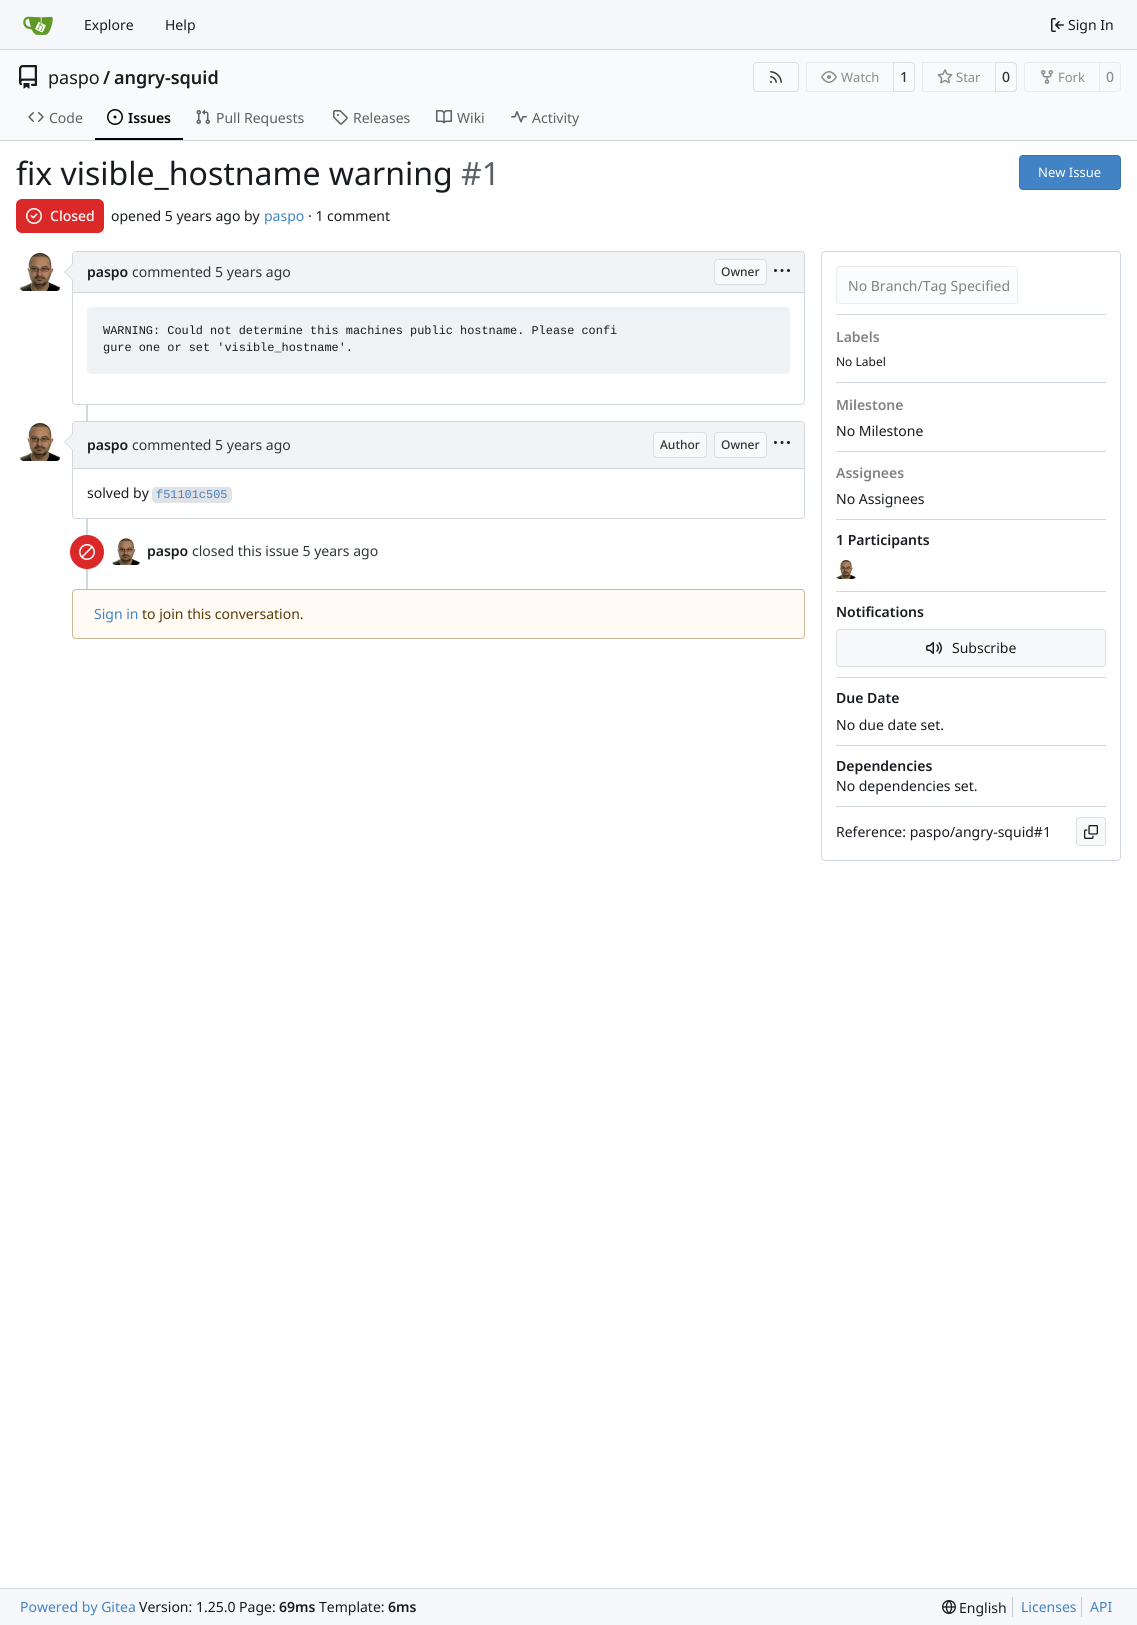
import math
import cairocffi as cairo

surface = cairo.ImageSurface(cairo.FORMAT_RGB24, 1137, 1625)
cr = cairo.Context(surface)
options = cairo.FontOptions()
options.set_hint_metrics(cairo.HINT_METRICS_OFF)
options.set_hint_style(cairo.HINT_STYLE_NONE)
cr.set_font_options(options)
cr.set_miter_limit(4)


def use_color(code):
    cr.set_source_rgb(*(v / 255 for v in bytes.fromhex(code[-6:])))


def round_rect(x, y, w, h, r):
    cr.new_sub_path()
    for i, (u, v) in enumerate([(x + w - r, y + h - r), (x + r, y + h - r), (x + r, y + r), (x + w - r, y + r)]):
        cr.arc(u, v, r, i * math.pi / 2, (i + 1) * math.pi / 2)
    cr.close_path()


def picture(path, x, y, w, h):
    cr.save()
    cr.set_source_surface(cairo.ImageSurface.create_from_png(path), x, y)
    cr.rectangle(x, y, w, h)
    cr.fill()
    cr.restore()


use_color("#ffffff")
cr.paint()
use_color("#f6f7fa")
cr.rectangle(0, 0, 1137, 49)
cr.fill()
use_color("#d0d7de")
cr.rectangle(0, 49, 1137, 1)
cr.fill()
picture("img1.png", 23, 16, 30, 19)
cr.select_font_face("Noto Sans")
cr.set_font_size(14)
use_color("#181c21")
cr.move_to(84, 30)
cr.show_text("Explore")
cr.move_to(165, 30)
cr.show_text("Help")
picture("img2.png", 1051, 18, 13, 14)
cr.move_to(1068, 30)
cr.show_text("Sign In")
use_color("#f9fafb")
cr.rectangle(0, 50, 1137, 90)
cr.fill()
picture("img3.png", 19, 65, 18, 24)
cr.set_font_size(18)
use_color("#181c21")
cr.move_to(48, 84)
cr.show_text("paspo")
cr.select_font_face("Noto Sans SemiBold")
cr.move_to(103, 84)
cr.show_text("/")
cr.move_to(114, 84)
cr.show_text("angry-squid")
round_rect(753.5, 62.5, 45, 29, 3.5)
use_color("#dddee1")
cr.set_line_width(1)
cr.stroke()
picture("img4.png", 770, 71, 12, 12)
cr.new_path()
cr.move_to(893.5, 62.5)
cr.line_to(911, 62.5)
cr.curve_to(913, 62.5, 914.5, 64, 914.5, 66)
cr.line_to(914.5, 88)
cr.curve_to(914.5, 90, 913, 91.5, 911, 91.5)
cr.line_to(893.5, 91.5)
cr.close_path()
cr.stroke()
cr.set_source_rgba(0.973, 0.976, 0.984, 0.55)
cr.new_path()
cr.move_to(810, 62)
cr.line_to(894, 62)
cr.line_to(894, 92)
cr.line_to(810, 92)
cr.curve_to(808, 92, 806, 90, 806, 88)
cr.line_to(806, 66)
cr.curve_to(806, 64, 808, 62, 810, 62)
cr.close_path()
cr.fill()
cr.rectangle(806.5, 62.5, 87, 29)
cr.set_source_rgba(0, 0, 0.09, 0.06)
cr.stroke()
picture("img5.png", 821, 71, 16, 12)
cr.select_font_face("Noto Sans")
cr.set_font_size(13)
use_color("#8a8e91")
cr.move_to(841, 82)
cr.show_text("Watch")
cr.select_font_face("Noto Sans Medium")
cr.set_font_size(14)
use_color("#30363b")
cr.move_to(900, 82)
cr.show_text("1")
cr.new_path()
cr.move_to(995.5, 62.5)
cr.line_to(1013, 62.5)
cr.curve_to(1015, 62.5, 1016.5, 64, 1016.5, 66)
cr.line_to(1016.5, 88)
cr.curve_to(1016.5, 90, 1015, 91.5, 1013, 91.5)
cr.line_to(995.5, 91.5)
cr.close_path()
use_color("#dddee1")
cr.stroke()
cr.set_source_rgba(0.973, 0.976, 0.984, 0.55)
cr.new_path()
cr.move_to(926, 62)
cr.line_to(996, 62)
cr.line_to(996, 92)
cr.line_to(926, 92)
cr.curve_to(924, 92, 922, 90, 922, 88)
cr.line_to(922, 66)
cr.curve_to(922, 64, 924, 62, 926, 62)
cr.close_path()
cr.fill()
cr.rectangle(922.5, 62.5, 73, 29)
cr.set_source_rgba(0, 0, 0.09, 0.06)
cr.stroke()
picture("img6.png", 937, 69, 16, 15)
cr.select_font_face("Noto Sans")
cr.set_font_size(13)
use_color("#8a8e91")
cr.move_to(956, 82)
cr.show_text("Star")
cr.select_font_face("Noto Sans Medium")
cr.set_font_size(14)
use_color("#30363b")
cr.move_to(1002, 82)
cr.show_text("0")
cr.new_path()
cr.move_to(1028, 62.5)
cr.line_to(1099.5, 62.5)
cr.line_to(1099.5, 91.5)
cr.line_to(1028, 91.5)
cr.curve_to(1026, 91.5, 1024.5, 90, 1024.5, 88)
cr.line_to(1024.5, 66)
cr.curve_to(1024.5, 64, 1026, 62.5, 1028, 62.5)
cr.close_path()
use_color("#e9eaed")
cr.stroke()
picture("img7.png", 1041, 70, 12, 14)
cr.select_font_face("Noto Sans")
cr.set_font_size(13)
use_color("#8a8e91")
cr.move_to(1058, 82)
cr.show_text("Fork")
use_color("#f8f9fb")
cr.new_path()
cr.move_to(1099.5, 62.5)
cr.line_to(1117, 62.5)
cr.curve_to(1119, 62.5, 1120.5, 64, 1120.5, 66)
cr.line_to(1120.5, 88)
cr.curve_to(1120.5, 90, 1119, 91.5, 1117, 91.5)
cr.line_to(1099.5, 91.5)
cr.close_path()
cr.fill_preserve()
use_color("#e9eaed")
cr.stroke()
cr.select_font_face("Noto Sans Medium")
cr.set_font_size(14)
use_color("#8a8e91")
cr.move_to(1106, 82)
cr.show_text("0")
picture("img8.png", 28, 112, 16, 10)
cr.select_font_face("Noto Sans")
use_color("#5b6167")
cr.move_to(49, 123)
cr.show_text("Code")
use_color("#01050a")
cr.rectangle(95, 138, 88, 2)
cr.fill()
picture("img9.png", 107, 109, 16, 16)
cr.select_font_face("Noto Sans SemiBold")
cr.move_to(128, 123)
cr.show_text("Issues")
picture("img10.png", 196, 109, 14, 15)
cr.select_font_face("Noto Sans")
use_color("#5b6167")
cr.move_to(216, 123)
cr.show_text("Pull Requests")
picture("img11.png", 333, 110, 15, 15)
cr.move_to(353, 123)
cr.show_text("Releases")
picture("img12.png", 436, 110, 16, 14)
cr.move_to(457, 123)
cr.show_text("Wiki")
picture("img13.png", 511, 111, 16, 12)
cr.move_to(532, 123)
cr.show_text("Activity")
use_color("#d0d7de")
cr.rectangle(0, 140, 1137, 1)
cr.fill()
cr.set_font_size(32)
use_color("#181c21")
cr.move_to(16, 185)
cr.show_text("fix visible_hostname warning")
use_color("#5b6167")
cr.move_to(461, 185)
cr.show_text("#1")
use_color("#4183c4")
round_rect(1019, 155, 102, 35, 4)
cr.fill()
round_rect(1019.5, 155.5, 101, 34, 3.5)
cr.set_source_rgba(0, 0, 0.09, 0.11)
cr.stroke()
cr.set_font_size(13)
use_color("#ffffff")
cr.move_to(1038, 177)
cr.show_text("New Issue")
use_color("#db2828")
round_rect(16, 199, 88, 34, 6)
cr.fill()
picture("img14.png", 26, 208, 16, 16)
cr.select_font_face("Noto Sans Medium")
cr.set_font_size(14)
use_color("#ffffff")
cr.move_to(50, 221)
cr.show_text("Closed")
cr.select_font_face("Noto Sans")
use_color("#181c21")
cr.move_to(111, 221)
cr.show_text("opened 5 years ago by")
use_color("#4183c4")
cr.move_to(264, 221)
cr.show_text("paspo")
use_color("#181c21")
cr.move_to(308, 221)
cr.show_text("· 1 comment")
picture("img15.png", 20, 252, 40, 39)
round_rect(72.5, 251.5, 732, 153, 3.5)
use_color("#d0d7de")
cr.stroke()
use_color("#f1f3f5")
cr.new_path()
cr.move_to(77, 252)
cr.line_to(800, 252)
cr.curve_to(802, 252, 804, 254, 804, 256)
cr.line_to(804, 292)
cr.line_to(73, 292)
cr.line_to(73, 256)
cr.curve_to(73, 254, 75, 252, 77, 252)
cr.close_path()
cr.fill()
use_color("#d0d7de")
cr.rectangle(73, 292, 731, 1)
cr.fill()
cr.new_path()
cr.move_to(73, 263)
cr.line_to(73, 281)
cr.line_to(64, 272)
cr.close_path()
cr.fill()
use_color("#f1f3f5")
cr.new_path()
cr.move_to(73, 264)
cr.line_to(73, 280)
cr.line_to(65, 272)
cr.close_path()
cr.fill()
cr.select_font_face("Noto Sans SemiBold")
use_color("#181c21")
cr.move_to(87, 277)
cr.show_text("paspo")
cr.select_font_face("Noto Sans")
use_color("#30363b")
cr.move_to(132, 277)
cr.show_text("commented 5 years ago")
use_color("#f8f9fb")
round_rect(714.5, 259.5, 52, 25, 3.5)
cr.fill_preserve()
use_color("#dcdce1")
cr.stroke()
cr.select_font_face("Noto Sans Medium")
cr.set_font_size(12)
use_color("#30363b")
cr.move_to(721, 276)
cr.show_text("Owner")
picture("img16.png", 774, 269, 16, 3)
use_color("#ffffff")
cr.new_path()
cr.move_to(73, 293)
cr.line_to(804, 293)
cr.line_to(804, 400)
cr.curve_to(804, 402, 802, 404, 800, 404)
cr.line_to(77, 404)
cr.curve_to(75, 404, 73, 402, 73, 400)
cr.close_path()
cr.fill()
use_color("#eff2f5")
round_rect(87, 307, 703, 67, 4)
cr.fill()
cr.select_font_face("Liberation Mono")
cr.set_font_size(11.9)
use_color("#181c21")
cr.move_to(103, 334)
cr.show_text("WARNING: Could not determine this machines public hostname. Please confi")
cr.move_to(103, 351)
cr.show_text("gure one or set 'visible_hostname'.")
use_color("#d0d7de")
cr.rectangle(86, 405, 2, 184)
cr.fill()
picture("img15.png", 20, 422, 40, 39)
use_color("#ffffff")
round_rect(72.5, 421.5, 732, 97, 3.5)
cr.fill_preserve()
use_color("#d0d7de")
cr.stroke()
use_color("#f1f3f5")
cr.new_path()
cr.move_to(77, 422)
cr.line_to(800, 422)
cr.curve_to(802, 422, 804, 424, 804, 426)
cr.line_to(804, 468)
cr.line_to(73, 468)
cr.line_to(73, 426)
cr.curve_to(73, 424, 75, 422, 77, 422)
cr.close_path()
cr.fill()
use_color("#d0d7de")
cr.rectangle(73, 468, 731, 1)
cr.fill()
cr.new_path()
cr.move_to(73, 433)
cr.line_to(73, 451)
cr.line_to(64, 442)
cr.close_path()
cr.fill()
use_color("#f1f3f5")
cr.new_path()
cr.move_to(73, 434)
cr.line_to(73, 450)
cr.line_to(65, 442)
cr.close_path()
cr.fill()
cr.select_font_face("Noto Sans SemiBold")
cr.set_font_size(14)
use_color("#181c21")
cr.move_to(87, 450)
cr.show_text("paspo")
cr.select_font_face("Noto Sans")
use_color("#30363b")
cr.move_to(132, 450)
cr.show_text("commented 5 years ago")
use_color("#f8f9fb")
round_rect(653.5, 432.5, 53, 25, 3.5)
cr.fill_preserve()
use_color("#dcdce1")
cr.stroke()
cr.select_font_face("Noto Sans Medium")
cr.set_font_size(12)
use_color("#30363b")
cr.move_to(660, 449)
cr.show_text("Author")
use_color("#f8f9fb")
round_rect(714.5, 432.5, 52, 25, 3.5)
cr.fill_preserve()
use_color("#dcdce1")
cr.stroke()
use_color("#30363b")
cr.move_to(721, 449)
cr.show_text("Owner")
picture("img16.png", 774, 441, 16, 3)
use_color("#ffffff")
cr.new_path()
cr.move_to(73, 469)
cr.line_to(804, 469)
cr.line_to(804, 514)
cr.curve_to(804, 516, 802, 518, 800, 518)
cr.line_to(77, 518)
cr.curve_to(75, 518, 73, 516, 73, 514)
cr.close_path()
cr.fill()
cr.select_font_face("Noto Sans")
cr.set_font_size(14)
use_color("#181c21")
cr.move_to(87, 498)
cr.show_text("solved by")
use_color("#e0e2e5")
round_rect(152, 487, 80, 16, 4)
cr.fill()
cr.select_font_face("Liberation Mono")
cr.set_font_size(11.9)
use_color("#4183c4")
cr.move_to(156, 498)
cr.show_text("f51101c505")
use_color("#db2828")
cr.new_path()
cr.arc(87, 552, 17, 0, 2 * math.pi)
cr.fill()
picture("img17.png", 79, 544, 16, 16)
picture("img18.png", 112, 537, 28, 28)
cr.select_font_face("Noto Sans SemiBold")
cr.set_font_size(14)
use_color("#181c21")
cr.move_to(147, 556)
cr.show_text("paspo")
cr.select_font_face("Noto Sans")
use_color("#30363b")
cr.move_to(192, 556)
cr.show_text("closed this issue 5 years ago")
use_color("#fffaf3")
round_rect(72.5, 589.5, 732, 49, 3.5)
cr.fill_preserve()
use_color("#c9ba9b")
cr.stroke()
use_color("#4183c4")
cr.move_to(94, 619)
cr.show_text("Sign in")
use_color("#573a08")
cr.move_to(142, 619)
cr.show_text("to join this conversation.")
round_rect(821.5, 251.5, 299, 609, 3.5)
use_color("#d0d7de")
cr.stroke()
use_color("#fbfcfd")
round_rect(836.5, 266.5, 181, 37, 3.5)
cr.fill_preserve()
use_color("#ececef")
cr.stroke()
use_color("#808285")
cr.move_to(848, 291)
cr.show_text("No Branch/Tag Specified")
use_color("#d0d7de")
cr.rectangle(836, 314, 270, 1)
cr.fill()
cr.select_font_face("Noto Sans SemiBold")
use_color("#808285")
cr.move_to(836, 342)
cr.show_text("Labels")
cr.select_font_face("Noto Sans")
cr.set_font_size(12)
use_color("#181c21")
cr.move_to(836, 366)
cr.show_text("No Label")
use_color("#d0d7de")
cr.rectangle(836, 382, 270, 1)
cr.fill()
cr.select_font_face("Noto Sans SemiBold")
cr.set_font_size(14)
use_color("#808285")
cr.move_to(836, 410)
cr.show_text("Milestone")
cr.select_font_face("Noto Sans")
use_color("#181c21")
cr.move_to(836, 436)
cr.show_text("No Milestone")
use_color("#d0d7de")
cr.rectangle(836, 451, 270, 1)
cr.fill()
cr.select_font_face("Noto Sans SemiBold")
use_color("#808285")
cr.move_to(836, 478)
cr.show_text("Assignees")
cr.select_font_face("Noto Sans")
use_color("#181c21")
cr.move_to(836, 504)
cr.show_text("No Assignees")
use_color("#d0d7de")
cr.rectangle(836, 519, 270, 1)
cr.fill()
cr.select_font_face("Noto Sans SemiBold")
use_color("#181c21")
cr.move_to(836, 545)
cr.show_text("1 Participants")
picture("img19.png", 836, 559, 20, 20)
use_color("#d0d7de")
cr.rectangle(836, 591, 270, 1)
cr.fill()
use_color("#181c21")
cr.move_to(836, 617)
cr.show_text("Notifications")
use_color("#f8f9fb")
round_rect(836.5, 629.5, 269, 37, 3.5)
cr.fill_preserve()
use_color("#dcdde1")
cr.stroke()
picture("img20.png", 926, 642, 16, 12)
cr.select_font_face("Noto Sans")
use_color("#181c21")
cr.move_to(952, 653)
cr.show_text("Subscribe")
use_color("#d0d7de")
cr.rectangle(836, 677, 270, 1)
cr.fill()
cr.select_font_face("Noto Sans SemiBold")
use_color("#181c21")
cr.move_to(836, 703)
cr.show_text("Due Date")
cr.select_font_face("Noto Sans")
cr.move_to(836, 730)
cr.show_text("No due date set.")
use_color("#d0d7de")
cr.rectangle(836, 745, 270, 1)
cr.fill()
cr.select_font_face("Noto Sans SemiBold")
use_color("#181c21")
cr.move_to(836, 771)
cr.show_text("Dependencies")
cr.select_font_face("Noto Sans")
cr.move_to(836, 791)
cr.show_text("No dependencies set.")
use_color("#d0d7de")
cr.rectangle(836, 806, 270, 1)
cr.fill()
use_color("#181c21")
cr.move_to(836, 837)
cr.show_text("Reference: paspo/angry-squid#1")
use_color("#f8f9fb")
round_rect(1076.5, 817.5, 29, 28, 3.5)
cr.fill_preserve()
use_color("#dcdde1")
cr.stroke()
picture("img21.png", 1084, 825, 14, 14)
use_color("#f6f7fa")
cr.rectangle(0, 1589, 1137, 36)
cr.fill()
use_color("#d0d7de")
cr.rectangle(0, 1588, 1137, 1)
cr.fill()
use_color("#4183c4")
cr.move_to(20, 1612)
cr.show_text("Powered by Gitea")
use_color("#181c21")
cr.move_to(139, 1612)
cr.show_text("Version: 1.25.0 Page:")
cr.select_font_face("Noto Sans SemiBold")
cr.move_to(279, 1612)
cr.show_text("69ms")
cr.select_font_face("Noto Sans")
cr.move_to(319, 1612)
cr.show_text("Template:")
cr.select_font_face("Noto Sans SemiBold")
cr.move_to(388, 1612)
cr.show_text("6ms")
picture("img22.png", 942, 1600, 14, 14)
cr.select_font_face("Noto Sans")
cr.move_to(959, 1613)
cr.show_text("English")
use_color("#c7ced5")
cr.rectangle(1012, 1597, 1, 20)
cr.fill()
use_color("#4183c4")
cr.move_to(1021, 1612)
cr.show_text("Licenses")
use_color("#c7ced5")
cr.rectangle(1081, 1597, 1, 20)
cr.fill()
use_color("#4183c4")
cr.move_to(1090, 1612)
cr.show_text("API")
surface.write_to_png("result.png")
